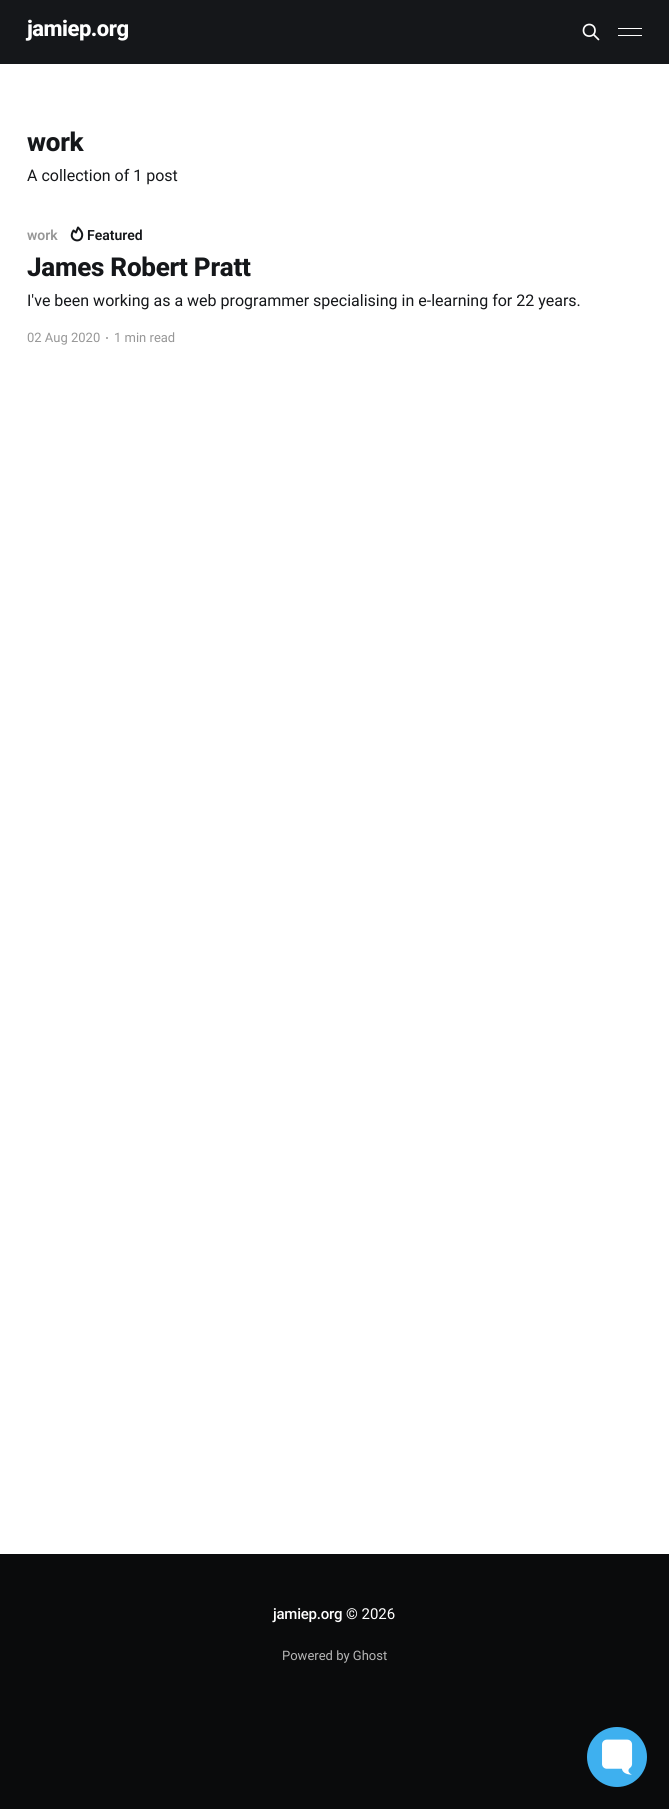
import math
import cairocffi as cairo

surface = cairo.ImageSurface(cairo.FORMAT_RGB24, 669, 1809)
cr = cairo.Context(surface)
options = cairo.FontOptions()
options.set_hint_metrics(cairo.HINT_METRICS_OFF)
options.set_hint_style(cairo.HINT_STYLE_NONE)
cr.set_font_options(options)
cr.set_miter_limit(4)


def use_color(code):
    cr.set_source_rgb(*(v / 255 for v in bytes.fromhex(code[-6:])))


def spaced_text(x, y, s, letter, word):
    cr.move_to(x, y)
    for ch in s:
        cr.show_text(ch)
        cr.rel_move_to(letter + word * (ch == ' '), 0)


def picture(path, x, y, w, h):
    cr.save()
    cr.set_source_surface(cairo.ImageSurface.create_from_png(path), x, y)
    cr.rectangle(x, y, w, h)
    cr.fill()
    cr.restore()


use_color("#ffffff")
cr.paint()
use_color("#15171a")
cr.rectangle(0, 0, 669, 64)
cr.fill()
cr.select_font_face("Roboto ExtraBold")
cr.set_font_size(22)
use_color("#ffffff")
spaced_text(27, 36, "jamiep.org", -0.5, 0)
cr.new_path()
cr.move_to(598.5, 39.5)
cr.line_to(593.5, 34.5)
cr.move_to(595, 30.5)
cr.curve_to(595, 38, 583.5, 38, 583.5, 30.5)
cr.curve_to(583.5, 22.5, 595, 22.5, 595, 30.5)
cr.close_path()
cr.set_line_width(1.7)
cr.set_line_cap(cairo.LINE_CAP_ROUND)
cr.set_line_join(cairo.LINE_JOIN_ROUND)
cr.stroke()
cr.rectangle(618, 28, 24, 1)
cr.fill()
cr.rectangle(618, 35, 24, 1)
cr.fill()
cr.set_font_size(26)
use_color("#15171a")
spaced_text(27, 151, "work", -0.25, 0)
cr.select_font_face("Roboto")
cr.set_font_size(16)
cr.move_to(27, 181)
cr.show_text("A collection of 1 post")
cr.select_font_face("Roboto SemiBold")
cr.set_font_size(14)
use_color("#979797")
cr.move_to(27, 240)
cr.show_text("work")
cr.new_path()
cr.move_to(73.5, 230.5)
cr.curve_to(67, 240, 80.5, 244, 82, 236.5)
cr.curve_to(83, 233, 80.5, 230, 78, 227.5)
cr.line_to(76, 232.5)
cr.close_path()
use_color("#15171a")
cr.set_line_width(2)
cr.stroke()
cr.move_to(87, 240)
cr.show_text("Featured")
cr.select_font_face("Roboto ExtraBold")
cr.set_font_size(26)
spaced_text(27, 276, "James Robert Pratt", -0.25, 0)
cr.select_font_face("Roboto")
cr.set_font_size(16)
cr.move_to(27, 306)
cr.show_text("I've been working as a web programmer specialising in e-learning for 22 years.")
cr.set_font_size(13)
use_color("#979797")
cr.move_to(27, 342)
cr.show_text("02 Aug 2020")
cr.new_path()
cr.arc(107, 338, 1, 0, 2 * math.pi)
cr.fill()
cr.move_to(114, 342)
cr.show_text("1 min read")
use_color("#0a0b0c")
cr.rectangle(0, 1554, 669, 255)
cr.fill()
cr.select_font_face("Roboto Medium")
cr.set_font_size(15)
use_color("#ffffff")
spaced_text(273, 1619, "jamiep.org", -0.25, 0)
cr.select_font_face("Roboto")
cr.move_to(346, 1619)
cr.show_text("© 2026")
cr.set_font_size(13)
use_color("#b6b6b6")
cr.move_to(282, 1660)
cr.show_text("Powered by Ghost")
use_color("#3eb0ef")
cr.new_path()
cr.arc(617, 1757, 30, 0, 2 * math.pi)
cr.fill()
picture("img1.png", 602, 1739, 31, 36)
surface.write_to_png("result.png")
